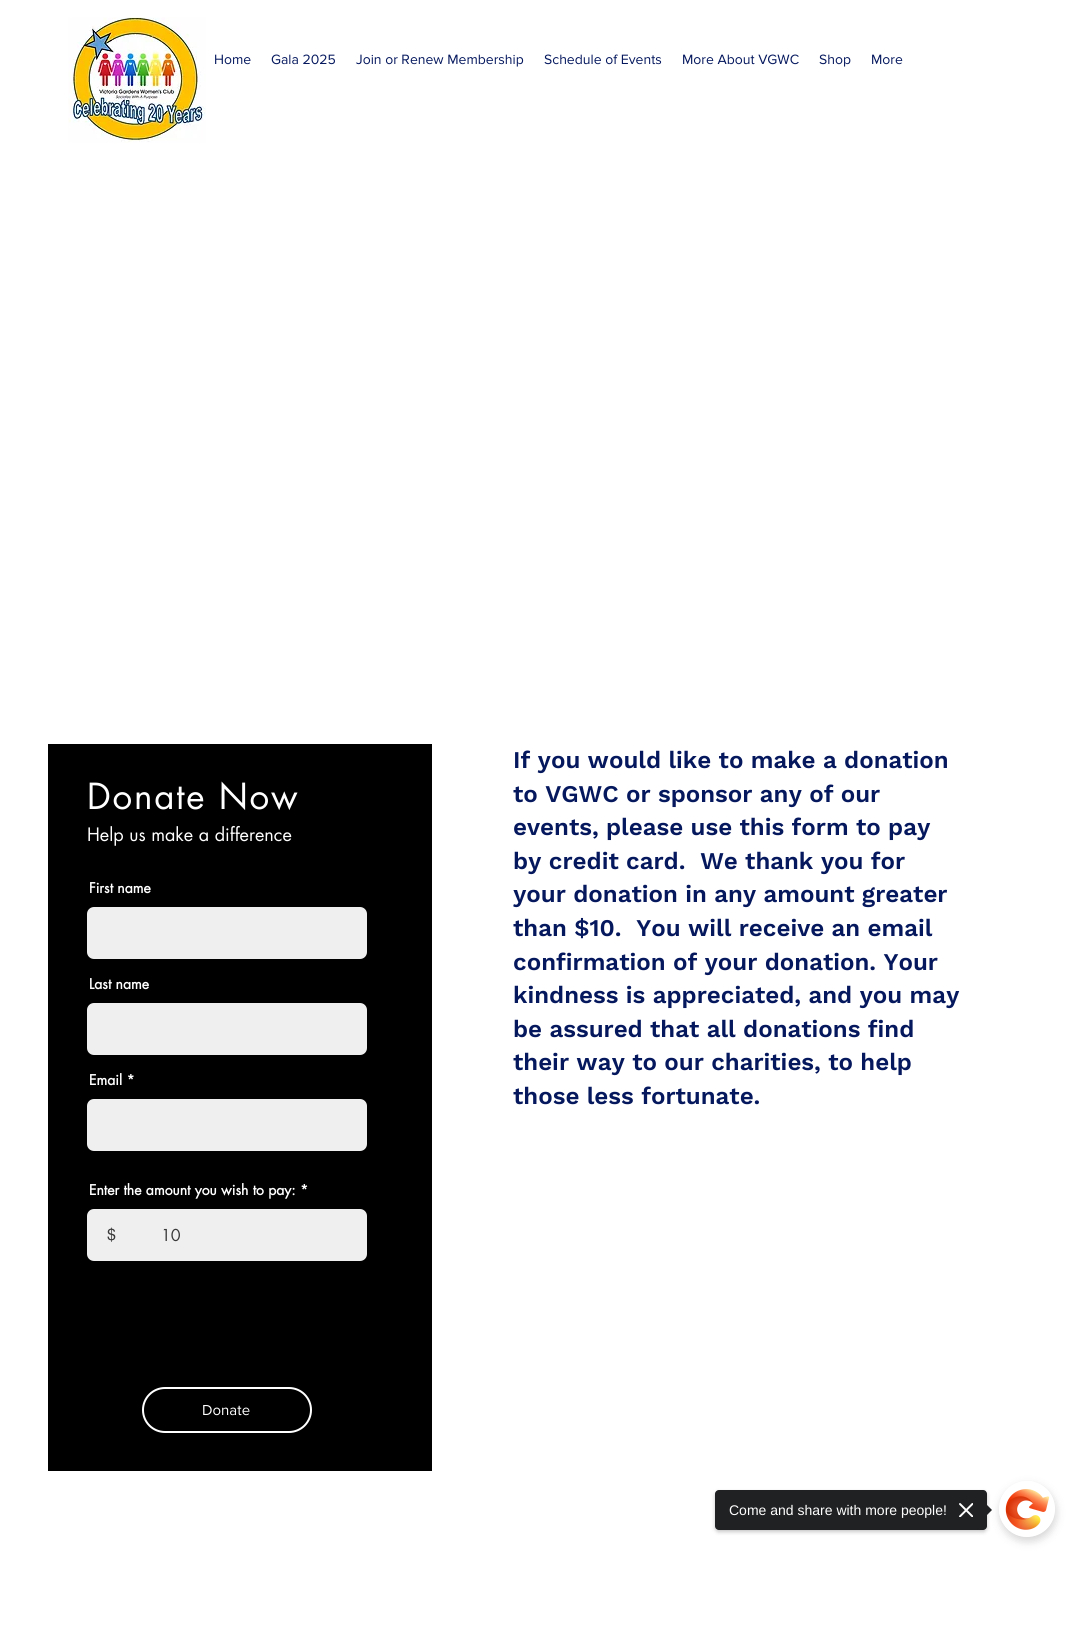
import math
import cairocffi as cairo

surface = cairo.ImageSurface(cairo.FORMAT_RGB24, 1075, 1629)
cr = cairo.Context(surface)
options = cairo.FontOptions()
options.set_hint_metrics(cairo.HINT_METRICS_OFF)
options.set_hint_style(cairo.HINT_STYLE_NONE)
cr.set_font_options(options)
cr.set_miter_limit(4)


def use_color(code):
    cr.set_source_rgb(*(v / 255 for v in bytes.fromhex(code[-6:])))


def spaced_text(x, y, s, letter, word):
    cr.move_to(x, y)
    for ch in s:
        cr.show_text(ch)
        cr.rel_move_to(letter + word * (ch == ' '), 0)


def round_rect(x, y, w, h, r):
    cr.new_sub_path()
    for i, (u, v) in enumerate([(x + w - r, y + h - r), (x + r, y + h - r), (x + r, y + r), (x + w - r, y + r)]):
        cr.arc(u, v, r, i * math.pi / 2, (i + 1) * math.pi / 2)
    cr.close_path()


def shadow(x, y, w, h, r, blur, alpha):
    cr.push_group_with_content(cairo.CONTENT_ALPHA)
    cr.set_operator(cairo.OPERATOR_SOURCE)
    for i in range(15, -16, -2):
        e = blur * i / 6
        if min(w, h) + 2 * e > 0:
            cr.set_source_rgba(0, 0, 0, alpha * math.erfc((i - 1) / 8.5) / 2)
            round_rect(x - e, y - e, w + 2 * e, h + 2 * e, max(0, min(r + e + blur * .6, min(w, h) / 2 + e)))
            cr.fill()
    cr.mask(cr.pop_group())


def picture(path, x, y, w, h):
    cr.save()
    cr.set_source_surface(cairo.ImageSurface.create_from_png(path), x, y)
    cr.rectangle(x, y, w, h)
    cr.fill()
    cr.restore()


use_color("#ffffff")
cr.paint()
picture("img1.png", 68, 17, 138, 126)
cr.select_font_face("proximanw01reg")
cr.set_font_size(14)
use_color("#05185e")
cr.move_to(214, 64)
cr.show_text("Home")
cr.move_to(271, 64)
cr.show_text("Gala 2025")
cr.move_to(356, 64)
cr.show_text("Join or Renew Membership")
cr.move_to(544, 64)
cr.show_text("Schedule of Events")
cr.move_to(682, 64)
cr.show_text("More About VGWC")
cr.move_to(819, 64)
cr.show_text("Shop")
cr.move_to(871, 64)
cr.show_text("More")
use_color("#000000")
cr.rectangle(48, 744, 384, 727)
cr.fill()
cr.select_font_face("futura")
cr.set_font_size(35)
use_color("#ffffff")
spaced_text(87, 809, "Donate Now", 1.75, 0)
cr.set_font_size(18)
cr.move_to(87, 841)
cr.show_text("Help us make a difference")
cr.select_font_face("futura", cairo.FONT_SLANT_NORMAL, cairo.FONT_WEIGHT_BOLD)
cr.set_font_size(14)
cr.move_to(89, 893)
cr.show_text("First name")
use_color("#efefef")
round_rect(88, 908, 278, 50, 6)
cr.fill_preserve()
cr.stroke()
use_color("#ffffff")
cr.move_to(89, 989)
cr.show_text("Last name")
use_color("#efefef")
round_rect(88, 1004, 278, 50, 6)
cr.fill_preserve()
cr.stroke()
use_color("#ffffff")
cr.move_to(89, 1085)
cr.show_text("Email *")
use_color("#efefef")
round_rect(88, 1100, 278, 50, 6)
cr.fill_preserve()
cr.stroke()
use_color("#ffffff")
cr.move_to(89, 1195)
cr.show_text("Enter the amount you wish to pay: *")
use_color("#efefef")
round_rect(88, 1210, 278, 50, 6)
cr.fill_preserve()
cr.stroke()
cr.select_font_face("helvetica")
cr.set_font_size(16)
use_color("#393939")
cr.move_to(107, 1240)
cr.show_text("$")
cr.select_font_face("futura")
cr.move_to(161, 1241)
cr.show_text("10")
round_rect(143, 1388, 168, 44, 22)
use_color("#ffffff")
cr.stroke()
cr.select_font_face("proximanw01reg")
cr.set_font_size(15)
cr.move_to(202, 1415)
cr.show_text("Donate")
cr.select_font_face("Work Sans SemiBold")
cr.set_font_size(24)
use_color("#05185e")
cr.move_to(513, 768)
cr.show_text("If you would like to make a donation")
cr.move_to(513, 802)
cr.show_text("to VGWC or sponsor any of our")
cr.move_to(513, 835)
cr.show_text("events, please use this form to pay")
cr.move_to(513, 869)
cr.show_text("by credit card.  We thank you for")
cr.move_to(513, 902)
cr.show_text("your donation in any amount greater")
cr.move_to(513, 936)
cr.show_text("than $10.  You will receive an email")
cr.move_to(513, 970)
cr.show_text("confirmation of your donation. Your")
cr.move_to(513, 1003)
cr.show_text("kindness is appreciated, and you may")
cr.move_to(513, 1037)
cr.show_text("be assured that all donations find")
cr.move_to(513, 1070)
cr.show_text("their way to our charities, to help")
cr.move_to(513, 1104)
cr.show_text("those less fortunate.")
cr.save()
cr.set_fill_rule(cairo.FILL_RULE_EVEN_ODD)
cr.new_path()
cr.move_to(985, 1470)
cr.line_to(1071, 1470)
cr.line_to(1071, 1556)
cr.line_to(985, 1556)
cr.close_path()
cr.move_to(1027, 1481)
cr.curve_to(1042.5, 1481, 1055, 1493.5, 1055, 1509)
cr.curve_to(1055, 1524.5, 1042.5, 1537, 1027, 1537)
cr.curve_to(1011.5, 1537, 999, 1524.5, 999, 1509)
cr.curve_to(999, 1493.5, 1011.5, 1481, 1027, 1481)
cr.close_path()
cr.clip()
use_color("#000000")
shadow(1000, 1485, 56, 56, 28, 4.5, 0.17)
cr.restore()
use_color("#000000")
shadow(715, 1492, 272, 40, 4, 2, 0.22)
use_color("#202123")
round_rect(715, 1490, 272, 40, 4)
cr.fill()
cr.select_font_face("Liberation Sans")
cr.set_font_size(14)
use_color("#ffffff")
cr.move_to(729, 1515)
cr.show_text("Come and share with more people!")
picture("img2.png", 959, 1503, 14, 14)
use_color("#202123")
cr.new_path()
cr.move_to(985, 1517)
cr.line_to(985, 1503)
cr.line_to(992, 1510)
cr.close_path()
cr.fill()
picture("img3.png", 1005, 1489, 45, 41)
surface.write_to_png("result.png")
